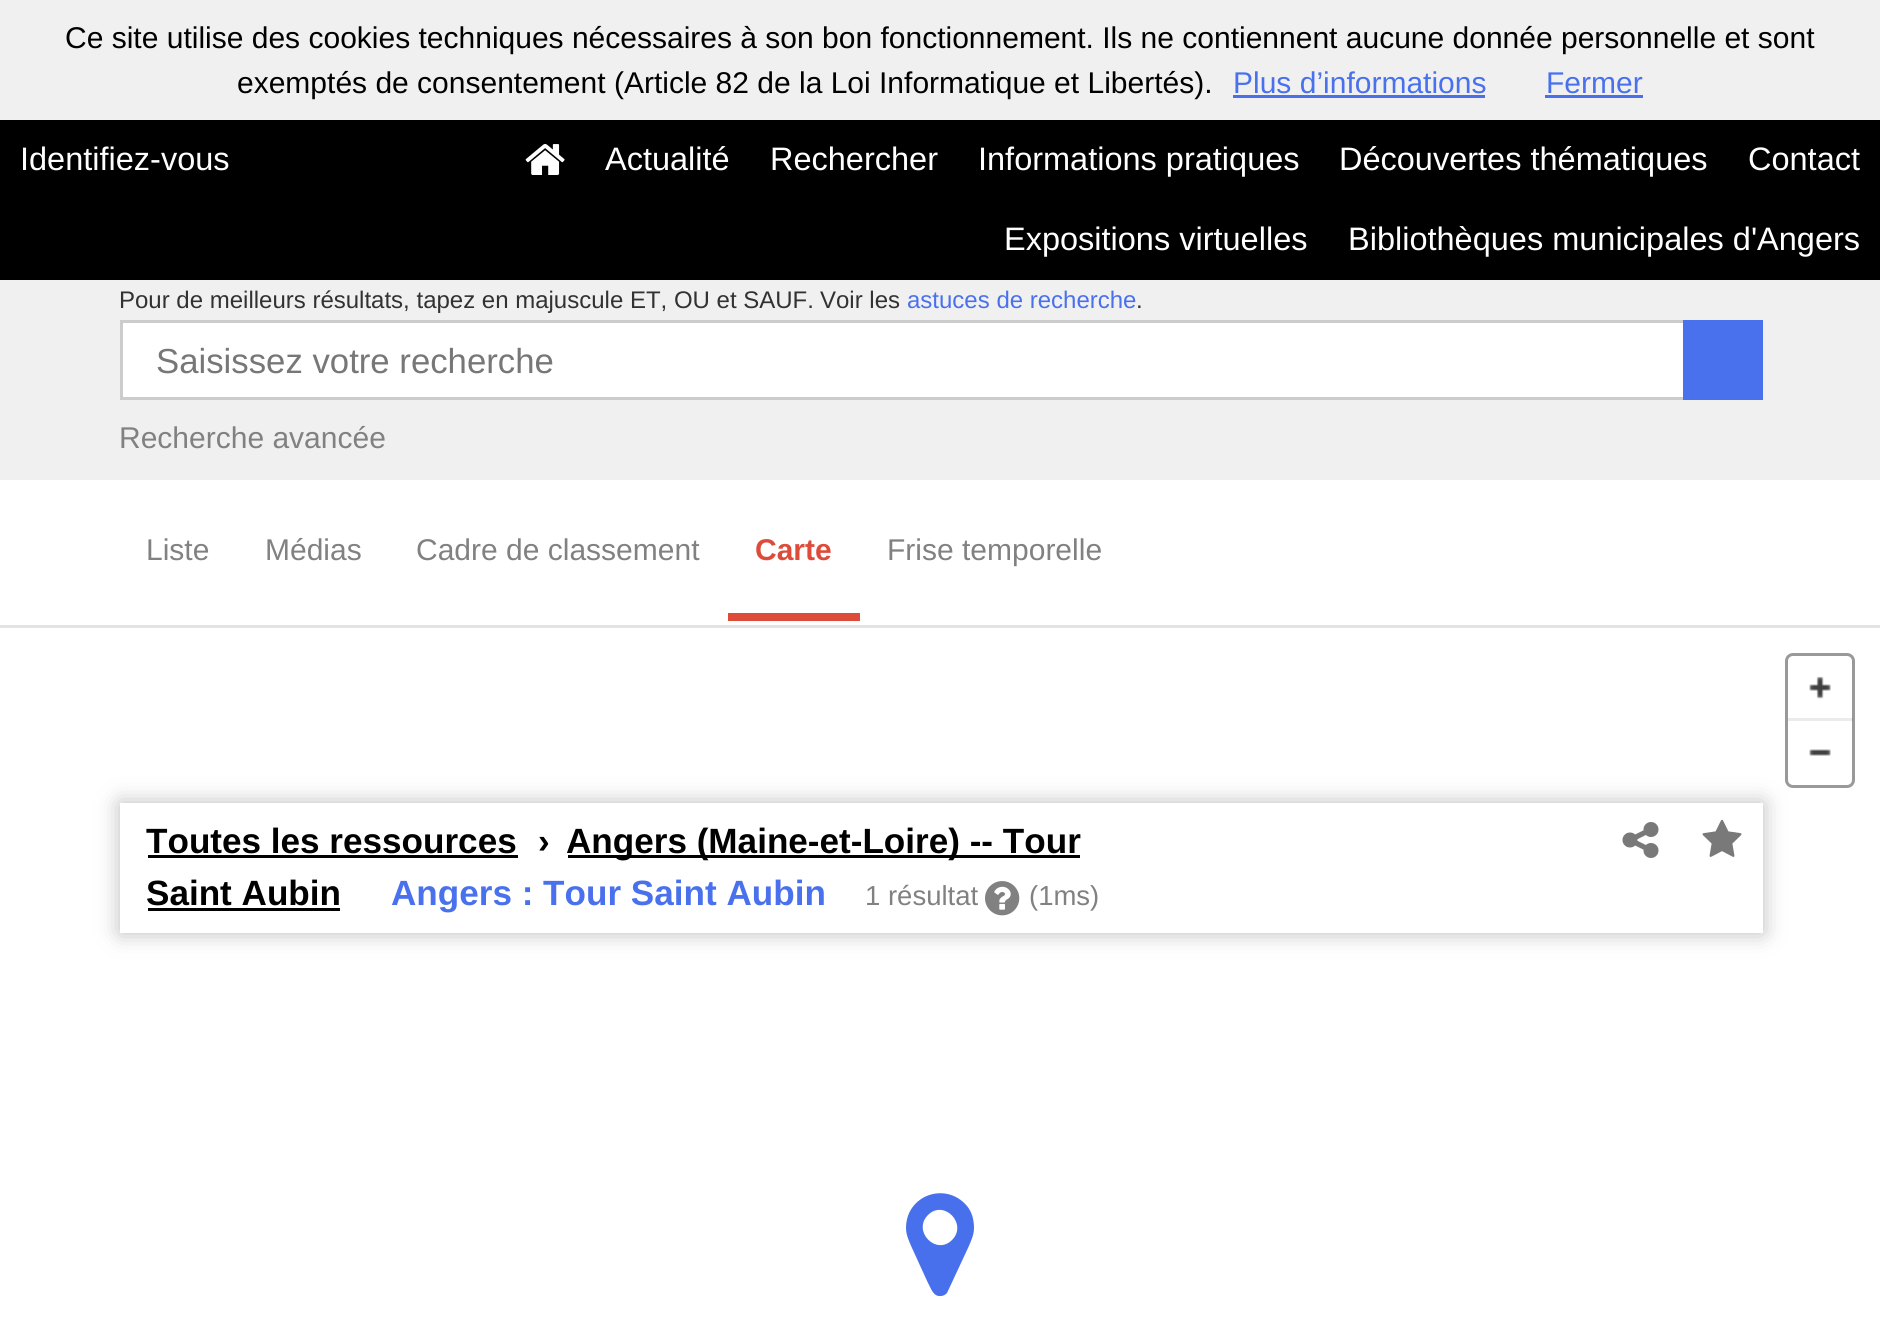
import math
import cairocffi as cairo

surface = cairo.ImageSurface(cairo.FORMAT_RGB24, 1880, 1323)
cr = cairo.Context(surface)
options = cairo.FontOptions()
options.set_hint_metrics(cairo.HINT_METRICS_OFF)
options.set_hint_style(cairo.HINT_STYLE_NONE)
cr.set_font_options(options)
cr.set_miter_limit(4)


def use_color(code):
    cr.set_source_rgb(*(v / 255 for v in bytes.fromhex(code[-6:])))


def round_rect(x, y, w, h, r):
    cr.new_sub_path()
    for i, (u, v) in enumerate([(x + w - r, y + h - r), (x + r, y + h - r), (x + r, y + r), (x + w - r, y + r)]):
        cr.arc(u, v, r, i * math.pi / 2, (i + 1) * math.pi / 2)
    cr.close_path()


def shadow(x, y, w, h, r, blur, alpha):
    cr.push_group_with_content(cairo.CONTENT_ALPHA)
    cr.set_operator(cairo.OPERATOR_SOURCE)
    for i in range(15, -16, -2):
        e = blur * i / 6
        if min(w, h) + 2 * e > 0:
            cr.set_source_rgba(0, 0, 0, alpha * math.erfc((i - 1) / 8.5) / 2)
            round_rect(x - e, y - e, w + 2 * e, h + 2 * e, max(0, min(r + e + blur * .6, min(w, h) / 2 + e)))
            cr.fill()
    cr.mask(cr.pop_group())


def picture(path, x, y, w, h):
    cr.save()
    cr.set_source_surface(cairo.ImageSurface.create_from_png(path), x, y)
    cr.rectangle(x, y, w, h)
    cr.fill()
    cr.restore()


use_color("#f0f0f0")
cr.paint()
cr.select_font_face("Liberation Sans")
cr.set_font_size(30)
use_color("#000000")
cr.move_to(65, 48)
cr.show_text("Ce site utilise des cookies techniques nécessaires à son bon fonctionnement. Ils ne contiennent aucune donnée personnelle et sont")
cr.move_to(237, 93)
cr.show_text("exemptés de consentement (Article 82 de la Loi Informatique et Libertés).")
use_color("#4a71ed")
cr.move_to(1233, 93)
cr.show_text("Plus d’informations")
use_color("#4970ec")
cr.rectangle(1233, 95, 252, 3)
cr.fill()
use_color("#4a71ed")
cr.move_to(1546, 93)
cr.show_text("Fermer")
use_color("#4970ec")
cr.rectangle(1545, 95, 98, 3)
cr.fill()
use_color("#000000")
cr.rectangle(0, 120, 1880, 160)
cr.fill()
cr.set_font_size(32.5)
use_color("#ffffff")
cr.move_to(20, 170)
cr.show_text("Identifiez-vous")
picture("img1.png", 525, 144, 40, 31)
cr.move_to(605, 170)
cr.show_text("Actualité")
cr.move_to(770, 170)
cr.show_text("Rechercher")
cr.move_to(978, 170)
cr.show_text("Informations pratiques")
cr.move_to(1339, 170)
cr.show_text("Découvertes thématiques")
cr.move_to(1748, 170)
cr.show_text("Contact")
cr.move_to(1004, 250)
cr.show_text("Expositions virtuelles")
cr.move_to(1348, 250)
cr.show_text("Bibliothèques municipales d'Angers")
cr.set_font_size(24)
use_color("#323232")
cr.move_to(119, 308)
cr.show_text("Pour de meilleurs résultats, tapez en majuscule ET, OU et SAUF.")
cr.move_to(820, 308)
cr.show_text("Voir les")
use_color("#4a71ed")
cr.move_to(907, 308)
cr.show_text("astuces de recherche")
use_color("#323232")
cr.move_to(1136, 308)
cr.show_text(".")
use_color("#ffffff")
cr.rectangle(123, 323, 1560, 74)
cr.fill()
cr.rectangle(121.5, 321.5, 1640, 77)
use_color("#cccccc")
cr.set_line_width(3)
cr.stroke()
cr.set_font_size(34.75)
use_color("#777777")
cr.move_to(156, 373)
cr.show_text("Saisissez votre recherche")
use_color("#4a71ed")
cr.rectangle(1683, 320, 80, 80)
cr.fill()
cr.set_font_size(30)
use_color("#818181")
cr.move_to(119, 448)
cr.show_text("Recherche avancée")
use_color("#ffffff")
cr.rectangle(0, 480, 1880, 145)
cr.fill()
use_color("#e3e3e3")
cr.rectangle(0, 625, 1880, 3)
cr.fill()
use_color("#818181")
cr.move_to(146, 560)
cr.show_text("Liste")
cr.move_to(265, 560)
cr.show_text("Médias")
cr.move_to(416, 560)
cr.show_text("Cadre de classement")
use_color("#dd4b39")
cr.rectangle(728, 613, 132, 8)
cr.fill()
cr.select_font_face("Liberation Sans", cairo.FONT_SLANT_NORMAL, cairo.FONT_WEIGHT_BOLD)
cr.move_to(755, 560)
cr.show_text("Carte")
cr.select_font_face("Liberation Sans")
use_color("#818181")
cr.move_to(887, 560)
cr.show_text("Frise temporelle")
use_color("#ffffff")
cr.rectangle(0, 628, 1880, 695)
cr.fill()
use_color("#bbbbbb")
shadow(120, 803, 1643, 130, 0, 11, 1)
round_rect(1786.5, 654.5, 67, 132, 6.5)
use_color("#999999")
cr.stroke()
picture("img2.png", 1809, 676, 22, 23)
cr.set_source_rgba(0, 0, 0, 0.08)
cr.rectangle(1788, 718, 65, 3)
cr.fill()
picture("img3.png", 1809, 749, 22, 7)
use_color("#4970ec")
cr.new_path()
cr.move_to(952, 1240)
cr.curve_to(968, 1224, 944, 1199, 928, 1215)
cr.curve_to(912, 1231, 936, 1256, 952, 1240)
cr.close_path()
cr.move_to(974, 1228)
cr.curve_to(974, 1235, 971, 1241, 968, 1248)
cr.line_to(947, 1293)
cr.curve_to(945, 1295, 943, 1296, 941, 1296)
cr.curve_to(933, 1297, 931, 1288, 928, 1283)
cr.line_to(912, 1248)
cr.curve_to(909, 1241, 906, 1235, 906, 1228)
cr.curve_to(906, 1195, 946, 1181, 967, 1206)
cr.curve_to(972, 1212, 974, 1220, 974, 1228)
cr.close_path()
cr.fill()
use_color("#ffffff")
cr.rectangle(120, 803, 1643, 130)
cr.fill()
cr.select_font_face("Liberation Sans", cairo.FONT_SLANT_NORMAL, cairo.FONT_WEIGHT_BOLD)
cr.set_font_size(35.1)
use_color("#000000")
cr.move_to(146, 853)
cr.show_text("Toutes les ressources")
cr.rectangle(148, 855, 370, 3)
cr.fill()
cr.move_to(538, 853)
cr.show_text("›")
cr.rectangle(568, 855, 512, 3)
cr.fill()
cr.move_to(566, 853)
cr.show_text("Angers (Maine-et-Loire) -- Tour")
cr.move_to(146, 905)
cr.show_text("Saint Aubin")
cr.rectangle(148, 908, 192, 3)
cr.fill()
use_color("#4a71ed")
cr.move_to(391, 905)
cr.show_text("Angers : Tour Saint Aubin")
cr.select_font_face("Liberation Sans")
cr.set_font_size(27.5)
use_color("#818181")
cr.move_to(865, 905)
cr.show_text("1 résultat")
picture("img4.png", 985, 881, 35, 35)
cr.move_to(1029, 905)
cr.show_text("(1ms)")
picture("img5.png", 1622, 822, 37, 36)
picture("img6.png", 1702, 819, 40, 38)
surface.write_to_png("result.png")
